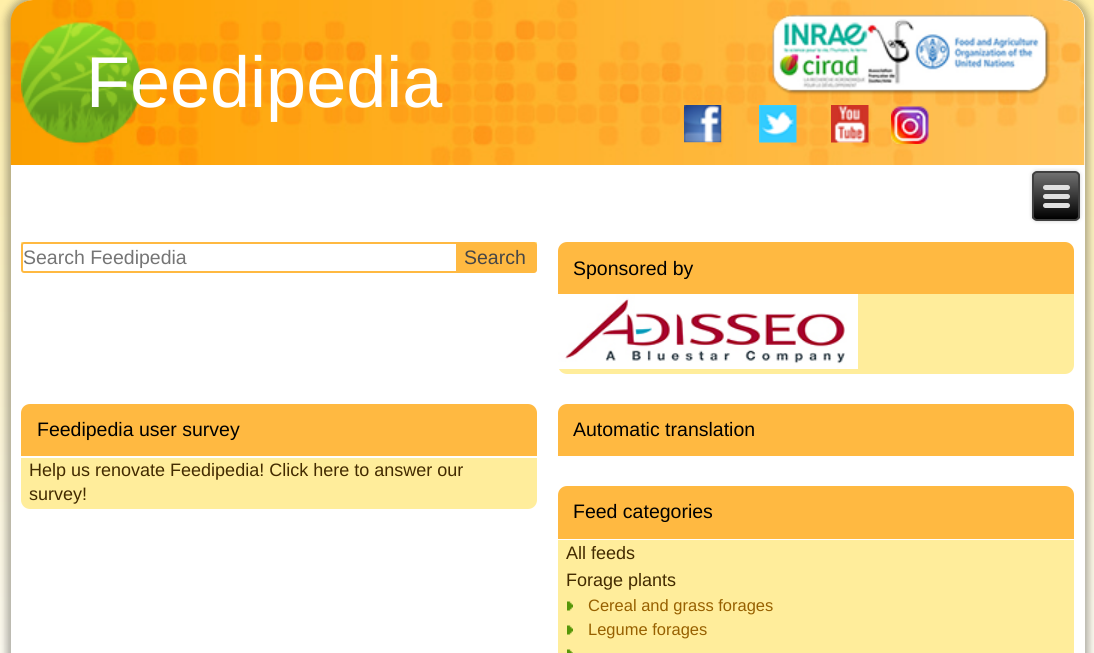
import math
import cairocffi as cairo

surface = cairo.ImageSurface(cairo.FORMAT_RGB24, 1094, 653)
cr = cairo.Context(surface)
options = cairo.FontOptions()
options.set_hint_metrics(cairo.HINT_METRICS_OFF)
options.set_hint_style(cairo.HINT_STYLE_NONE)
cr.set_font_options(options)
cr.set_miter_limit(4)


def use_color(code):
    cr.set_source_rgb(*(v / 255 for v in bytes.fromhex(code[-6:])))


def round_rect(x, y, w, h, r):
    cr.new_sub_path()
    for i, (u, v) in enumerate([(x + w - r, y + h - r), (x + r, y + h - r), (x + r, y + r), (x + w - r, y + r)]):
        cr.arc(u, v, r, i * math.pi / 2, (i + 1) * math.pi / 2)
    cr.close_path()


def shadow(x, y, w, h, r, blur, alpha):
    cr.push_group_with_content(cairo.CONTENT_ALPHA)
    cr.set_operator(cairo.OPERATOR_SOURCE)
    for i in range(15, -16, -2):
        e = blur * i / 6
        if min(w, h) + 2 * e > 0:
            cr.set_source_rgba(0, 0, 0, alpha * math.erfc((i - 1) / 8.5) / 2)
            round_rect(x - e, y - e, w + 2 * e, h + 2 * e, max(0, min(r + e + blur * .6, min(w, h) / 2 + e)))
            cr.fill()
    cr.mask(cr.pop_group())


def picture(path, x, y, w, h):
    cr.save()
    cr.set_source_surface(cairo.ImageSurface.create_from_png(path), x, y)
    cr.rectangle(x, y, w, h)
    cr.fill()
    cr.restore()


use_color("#ffffff")
cr.paint()
gradient = cairo.LinearGradient(547, 0, 548, 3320)
gradient.add_color_stop_rgba(0, 1, 0.937, 0.659, 1)
gradient.add_color_stop_rgba(0.23, 1, 1, 1, 1)
cr.set_source(gradient)
cr.rectangle(0, 0, 1094, 653)
cr.fill()
use_color("#000000")
shadow(6, -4, 1083, 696, 27, 4, 0.3)
use_color("#ffffff")
round_rect(11, 0, 1074, 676, 23)
cr.fill()
picture("img1.png", 10, 0, 1075, 165)
cr.select_font_face("Liberation Sans")
cr.set_font_size(72)
cr.move_to(86, 107)
cr.show_text("Feedipedia")
picture("img2.png", 684, 105, 38, 38)
picture("img3.png", 759, 105, 38, 38)
picture("img4.png", 831, 105, 38, 38)
picture("img5.png", 891, 106, 38, 38)
use_color("#000000")
shadow(1032, 171, 48, 50, 5, 2, 0.2)
cr.save()
round_rect(1032, 171, 48, 50, 5)
cr.clip()
gradient = cairo.LinearGradient(1056, 173, 1056, 219)
gradient.add_color_stop_rgba(0, 0.439, 0.439, 0.439, 1)
gradient.add_color_stop_rgba(1, 0, 0, 0, 1)
cr.set_source(gradient)
cr.rectangle(1032, 173, 48, 46)
cr.fill()
cr.restore()
round_rect(1033, 172, 46, 48, 4)
use_color("#404040")
cr.stroke()
use_color("#e0e0e0")
round_rect(1043, 185, 27, 5, 2.5)
cr.fill()
round_rect(1043, 194, 27, 5, 2.5)
cr.fill()
round_rect(1043, 203, 27, 5, 2.5)
cr.fill()
use_color("#ffed9b")
cr.new_path()
cr.move_to(21, 242)
cr.line_to(537, 242)
cr.line_to(537, 264)
cr.curve_to(537, 269, 533, 273, 528, 273)
cr.line_to(30, 273)
cr.curve_to(25, 273, 21, 269, 21, 264)
cr.close_path()
cr.fill()
use_color("#ffffff")
round_rect(22, 243, 514, 29, 2)
cr.fill_preserve()
use_color("#ffb941")
cr.stroke()
cr.set_font_size(19.5)
use_color("#757575")
cr.move_to(23, 264)
cr.show_text("Search Feedipedia")
use_color("#ffb941")
cr.new_path()
cr.move_to(456, 243)
cr.line_to(534.5, 243)
cr.curve_to(535.5, 243, 536, 243.5, 536, 244.5)
cr.line_to(536, 270.5)
cr.curve_to(536, 271.5, 535.5, 272, 534.5, 272)
cr.line_to(456, 272)
cr.close_path()
cr.fill()
use_color("#464646")
cr.move_to(464, 264)
cr.show_text("Search")
use_color("#ffb941")
cr.new_path()
cr.move_to(567, 242)
cr.line_to(1065, 242)
cr.curve_to(1070, 242, 1074, 246, 1074, 251)
cr.line_to(1074, 294)
cr.line_to(558, 294)
cr.line_to(558, 251)
cr.curve_to(558, 246, 562, 242, 567, 242)
cr.close_path()
cr.fill()
use_color("#000000")
cr.move_to(573, 275)
cr.show_text("Sponsored by")
use_color("#ffed9b")
cr.new_path()
cr.move_to(558, 294)
cr.line_to(1074, 294)
cr.line_to(1074, 365)
cr.curve_to(1074, 370, 1070, 374, 1065, 374)
cr.line_to(567, 374)
cr.curve_to(562, 374, 558, 370, 558, 365)
cr.close_path()
cr.fill()
picture("img6.png", 558, 294, 300, 75)
use_color("#ffb941")
cr.new_path()
cr.move_to(30, 404)
cr.line_to(528, 404)
cr.curve_to(533, 404, 537, 408, 537, 413)
cr.line_to(537, 456)
cr.line_to(21, 456)
cr.line_to(21, 413)
cr.curve_to(21, 408, 25, 404, 30, 404)
cr.close_path()
cr.fill()
use_color("#000000")
cr.move_to(37, 436)
cr.show_text("Feedipedia user survey")
use_color("#ffed9b")
cr.new_path()
cr.move_to(21, 458)
cr.line_to(537, 458)
cr.line_to(537, 500)
cr.curve_to(537, 505, 533, 509, 528, 509)
cr.line_to(30, 509)
cr.curve_to(25, 509, 21, 505, 21, 500)
cr.close_path()
cr.fill()
cr.set_font_size(18)
use_color("#432b00")
cr.move_to(29, 476)
cr.show_text("Help us renovate Feedipedia! Click here to answer our")
cr.move_to(29, 500)
cr.show_text("survey!")
use_color("#ffb941")
cr.new_path()
cr.move_to(567, 404)
cr.line_to(1065, 404)
cr.curve_to(1070, 404, 1074, 408, 1074, 413)
cr.line_to(1074, 456)
cr.line_to(558, 456)
cr.line_to(558, 413)
cr.curve_to(558, 408, 562, 404, 567, 404)
cr.close_path()
cr.fill()
cr.set_font_size(19.5)
use_color("#000000")
cr.move_to(573, 436)
cr.show_text("Automatic translation")
use_color("#ffb941")
cr.new_path()
cr.move_to(567, 486)
cr.line_to(1065, 486)
cr.curve_to(1070, 486, 1074, 490, 1074, 495)
cr.line_to(1074, 539)
cr.line_to(558, 539)
cr.line_to(558, 495)
cr.curve_to(558, 490, 562, 486, 567, 486)
cr.close_path()
cr.fill()
use_color("#000000")
cr.move_to(573, 518)
cr.show_text("Feed categories")
use_color("#ffed9b")
cr.rectangle(558, 540, 516, 113)
cr.fill()
cr.set_font_size(18)
use_color("#432b00")
cr.move_to(566, 559)
cr.show_text("All feeds")
cr.move_to(566, 586)
cr.show_text("Forage plants")
picture("img7.png", 567, 601, 6, 10)
cr.set_font_size(16.5)
use_color("#976000")
cr.move_to(588, 611)
cr.show_text("Cereal and grass forages")
picture("img7.png", 567, 625, 6, 10)
cr.move_to(588, 635)
cr.show_text("Legume forages")
picture("img8.png", 567, 649, 6, 4)
surface.write_to_png("result.png")
